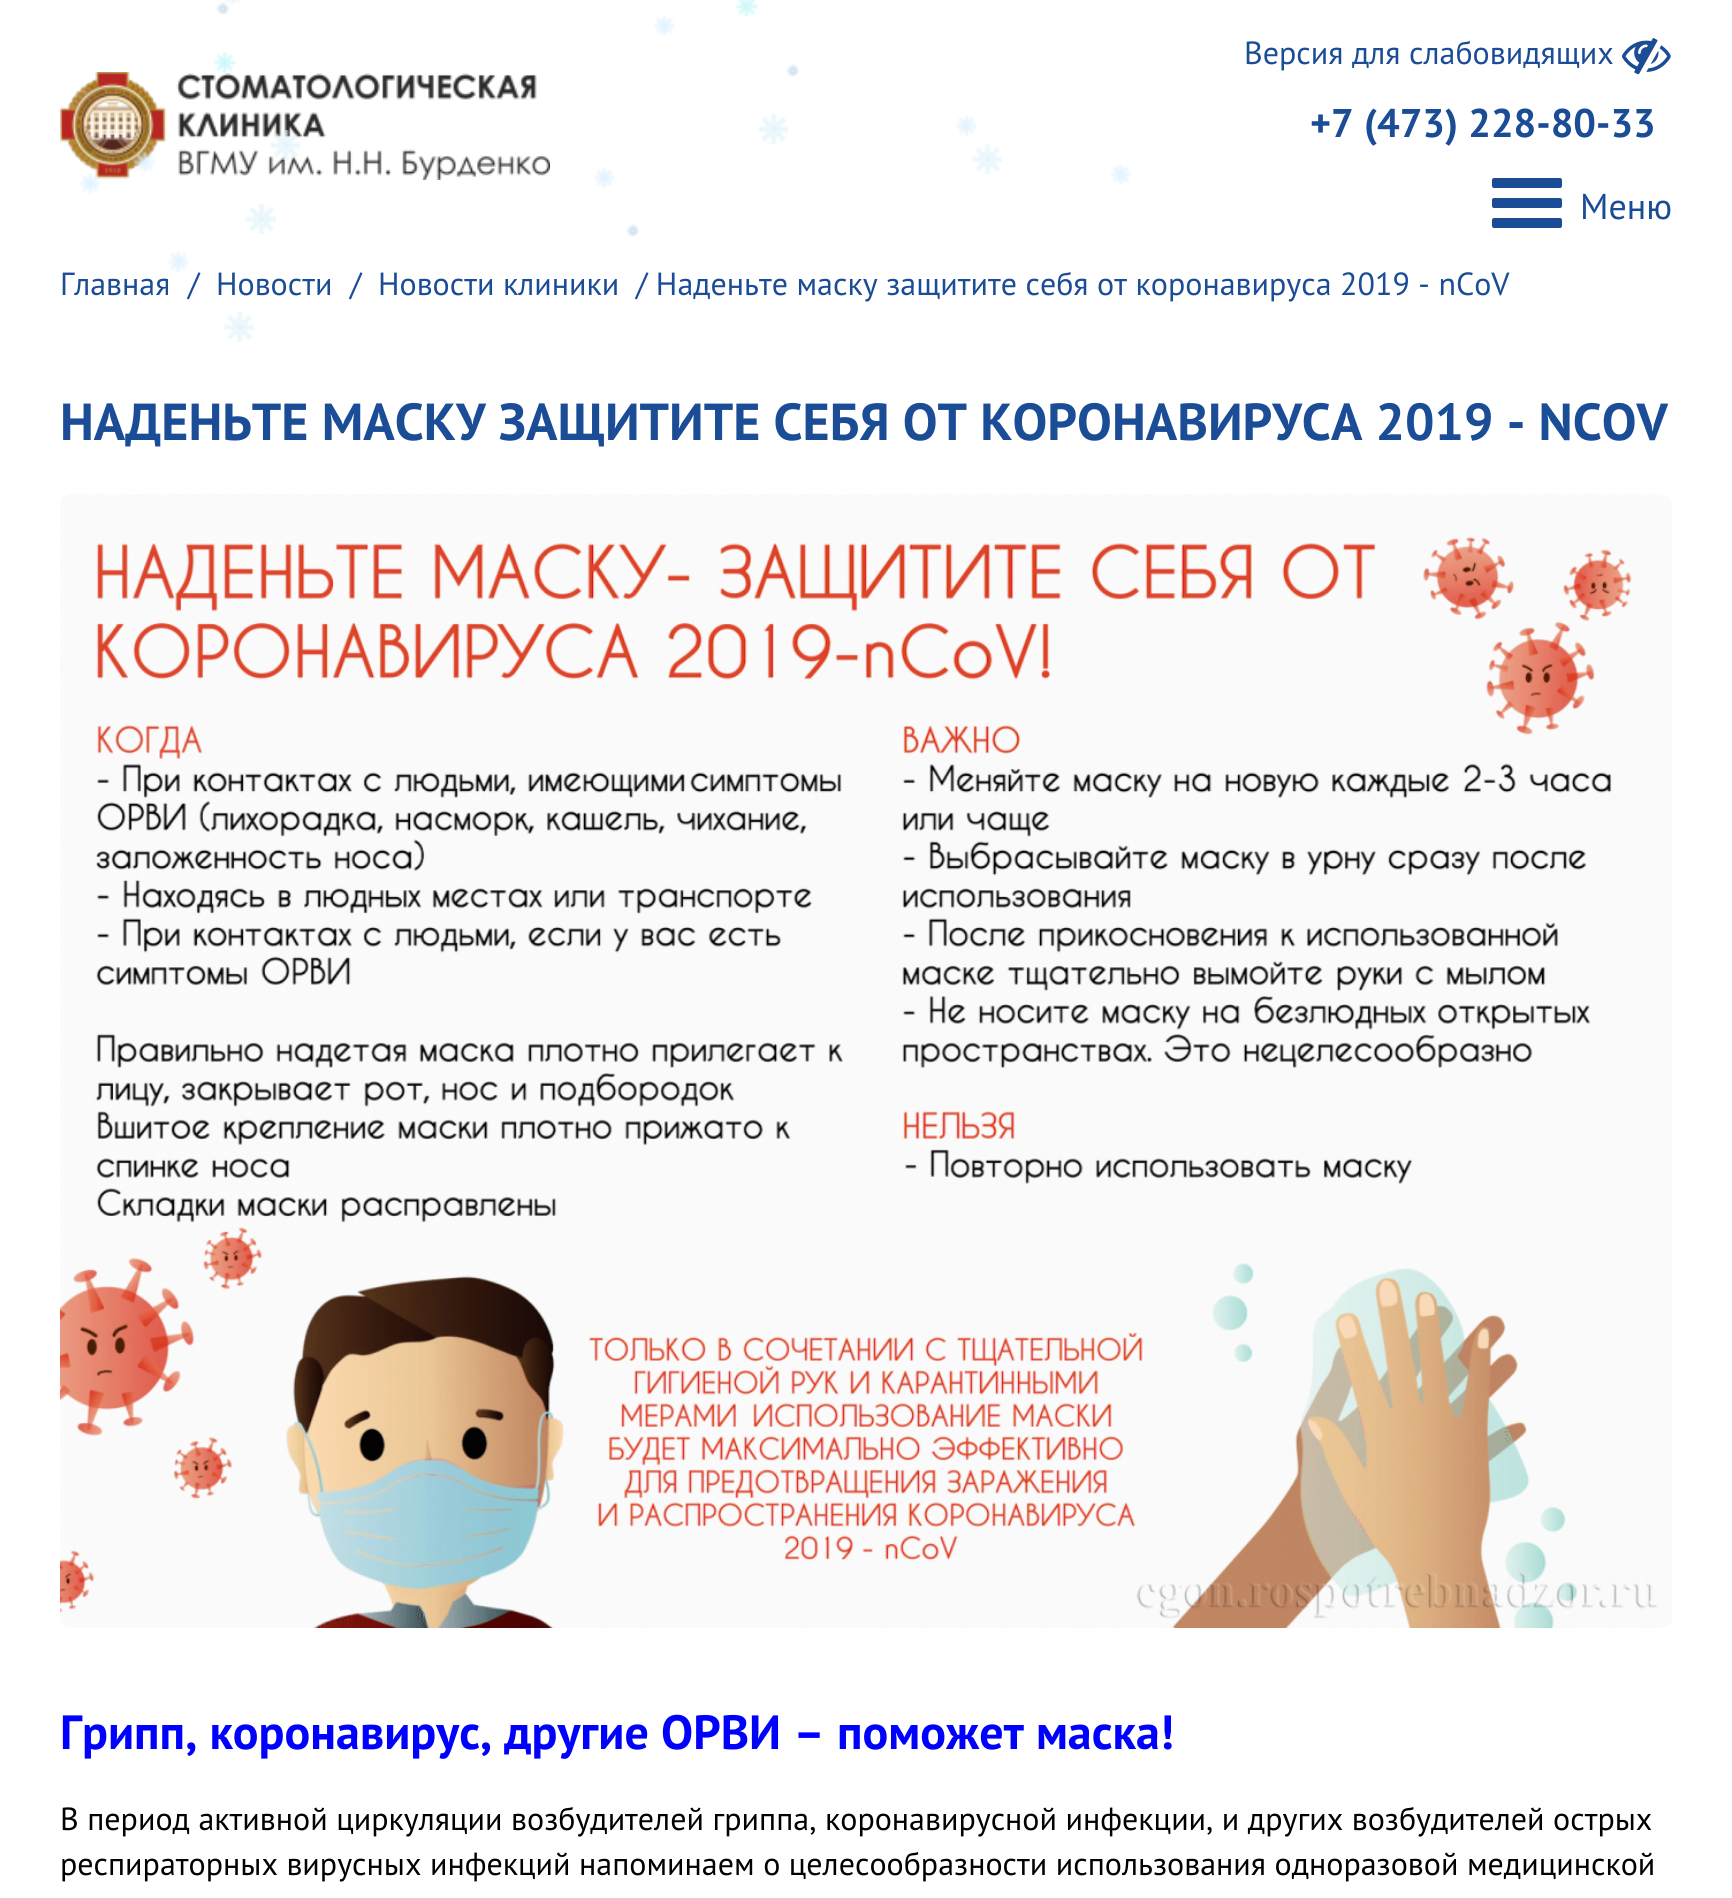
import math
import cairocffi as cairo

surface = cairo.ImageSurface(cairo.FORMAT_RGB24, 1732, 1898)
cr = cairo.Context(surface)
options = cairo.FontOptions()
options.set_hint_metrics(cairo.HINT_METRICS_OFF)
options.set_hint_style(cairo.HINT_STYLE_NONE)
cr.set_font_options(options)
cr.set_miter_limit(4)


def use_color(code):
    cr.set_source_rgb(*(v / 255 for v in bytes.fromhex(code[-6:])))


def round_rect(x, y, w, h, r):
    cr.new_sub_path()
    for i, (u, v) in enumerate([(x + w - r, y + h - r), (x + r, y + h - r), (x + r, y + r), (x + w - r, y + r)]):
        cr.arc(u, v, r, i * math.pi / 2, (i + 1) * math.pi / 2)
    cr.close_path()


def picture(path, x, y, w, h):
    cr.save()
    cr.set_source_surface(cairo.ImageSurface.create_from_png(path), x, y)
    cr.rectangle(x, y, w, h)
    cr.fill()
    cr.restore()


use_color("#ffffff")
cr.paint()
picture("img1.png", 216, 2, 14, 13)
picture("img2.png", 224, 0, 18, 5)
picture("img3.png", 735, 0, 23, 17)
picture("img4.png", 654, 15, 20, 21)
picture("img5.png", 60, 72, 490, 108)
cr.select_font_face("PT Sans")
cr.set_font_size(32)
use_color("#1b4c96")
cr.move_to(1244, 64)
cr.show_text("Версия для слабовидящих")
picture("img6.png", 1622, 38, 49, 36)
cr.select_font_face("PT Sans", cairo.FONT_SLANT_NORMAL, cairo.FONT_WEIGHT_BOLD)
cr.set_font_size(40)
cr.move_to(1310, 137)
cr.show_text("+7 (473) 228-80-33")
round_rect(1492, 198, 70, 10, 2)
cr.fill()
round_rect(1492, 178, 70, 10, 2)
cr.fill()
round_rect(1492, 218, 70, 10, 2)
cr.fill()
cr.select_font_face("PT Sans")
cr.set_font_size(36)
cr.move_to(1580, 219)
cr.show_text("Меню")
cr.set_font_size(32)
cr.move_to(60, 295)
cr.show_text("Главная")
cr.move_to(188, 295)
cr.show_text("/")
cr.move_to(216, 295)
cr.show_text("Новости")
cr.move_to(350, 295)
cr.show_text("/")
cr.move_to(378, 295)
cr.show_text("Новости клиники")
cr.move_to(636, 295)
cr.show_text("/ Наденьте маску защитите себя от коронавируса 2019 - nCoV")
cr.select_font_face("PT Sans", cairo.FONT_SLANT_NORMAL, cairo.FONT_WEIGHT_BOLD)
cr.set_font_size(52)
cr.move_to(60, 440)
cr.show_text("НАДЕНЬТЕ МАСКУ ЗАЩИТИТЕ СЕБЯ ОТ КОРОНАВИРУСА 2019 - NCOV")
picture("img7.png", 60, 494, 1612, 1134)
cr.set_font_size(48)
use_color("#0000ff")
cr.move_to(60, 1749)
cr.show_text("Грипп, коронавирус, другие ОРВИ – поможет маска!")
cr.select_font_face("PT Sans")
cr.set_font_size(32)
use_color("#000000")
cr.move_to(60, 1830)
cr.show_text("В период активной циркуляции возбудителей гриппа, коронавирусной инфекции, и других возбудителей острых")
cr.move_to(60, 1875)
cr.show_text("респираторных вирусных инфекций напоминаем о целесообразности использования одноразовой медицинской")
picture("img8.png", 213, 51, 23, 22)
picture("img1.png", 786, 64, 14, 13)
picture("img9.png", 758, 114, 30, 30)
picture("img4.png", 956, 115, 20, 21)
picture("img10.png", 80, 173, 20, 21)
picture("img11.png", 133, 150, 22, 23)
picture("img12.png", 270, 130, 30, 30)
picture("img4.png", 594, 167, 20, 21)
picture("img9.png", 972, 144, 30, 30)
picture("img13.png", 1110, 163, 21, 22)
picture("img9.png", 246, 204, 30, 30)
picture("img1.png", 626, 224, 14, 13)
picture("img4.png", 168, 251, 20, 21)
picture("img9.png", 224, 312, 30, 30)
surface.write_to_png("result.png")
